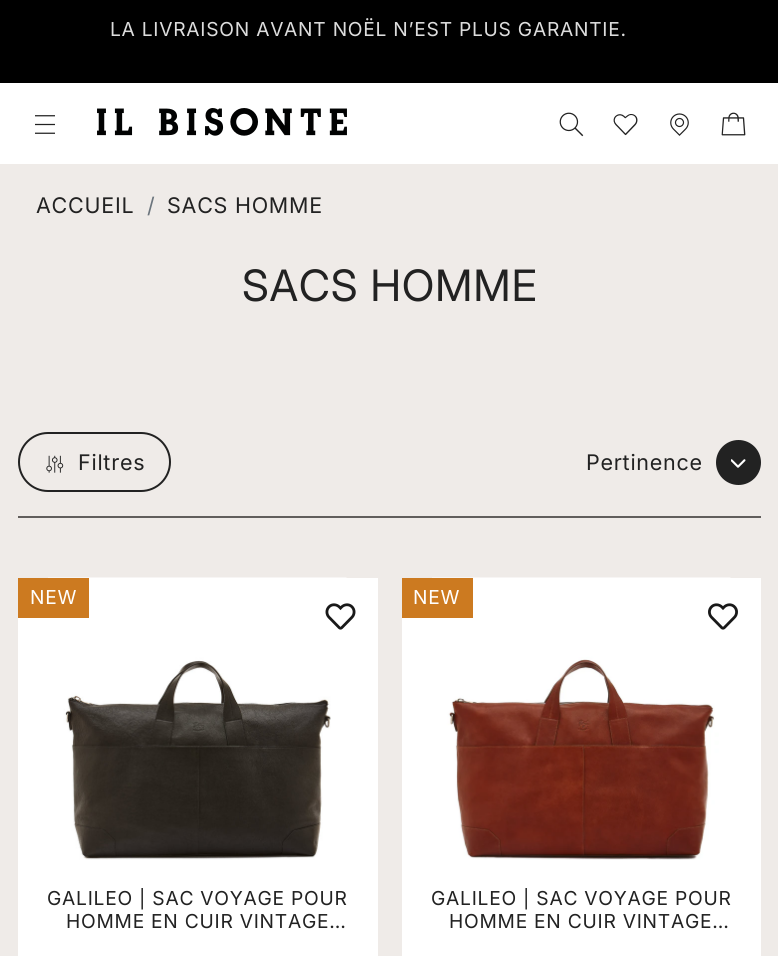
import math
import cairocffi as cairo

surface = cairo.ImageSurface(cairo.FORMAT_RGB24, 778, 956)
cr = cairo.Context(surface)
options = cairo.FontOptions()
options.set_hint_metrics(cairo.HINT_METRICS_OFF)
options.set_hint_style(cairo.HINT_STYLE_NONE)
cr.set_font_options(options)
cr.set_miter_limit(4)


def use_color(code):
    cr.set_source_rgb(*(v / 255 for v in bytes.fromhex(code[-6:])))


def spaced_text(x, y, s, letter, word):
    cr.move_to(x, y)
    for ch in s:
        cr.show_text(ch)
        cr.rel_move_to(letter + word * (ch == ' '), 0)


def round_rect(x, y, w, h, r):
    cr.new_sub_path()
    for i, (u, v) in enumerate([(x + w - r, y + h - r), (x + r, y + h - r), (x + r, y + r), (x + w - r, y + r)]):
        cr.arc(u, v, r, i * math.pi / 2, (i + 1) * math.pi / 2)
    cr.close_path()


def picture(path, x, y, w, h):
    cr.save()
    cr.set_source_surface(cairo.ImageSurface.create_from_png(path), x, y)
    cr.rectangle(x, y, w, h)
    cr.fill()
    cr.restore()


use_color("#ffffff")
cr.paint()
use_color("#000000")
cr.rectangle(0, 0, 778, 83)
cr.fill()
cr.select_font_face("Inter")
cr.set_font_size(19.2)
use_color("#dddddd")
spaced_text(110, 36, "LA LIVRAISON AVANT NOËL N’EST PLUS GARANTIE.", 0.75, 0)
picture("img1.png", 35, 115, 20, 19)
picture("img2.png", 97, 108, 250, 28)
picture("img3.png", 559, 112, 25, 25)
picture("img4.png", 613, 114, 25, 22)
picture("img5.png", 670, 113, 19, 23)
picture("img6.png", 721, 112, 25, 24)
use_color("#efebe8")
cr.rectangle(0, 164, 778, 792)
cr.fill()
cr.set_font_size(21.5)
use_color("#222222")
spaced_text(36, 213, "ACCUEIL", 0.75, 0)
use_color("#6c757d")
spaced_text(147, 213, "/", 0.75, 0)
use_color("#222222")
spaced_text(167, 213, "SACS HOMME", 0.75, 0)
cr.select_font_face("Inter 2")
cr.set_font_size(43.25)
spaced_text(242, 301, "SACS HOMME", 0.75, 0)
use_color("#615e5c")
cr.rectangle(18, 516, 743, 2)
cr.fill()
round_rect(19, 433, 151, 58, 29)
use_color("#222222")
cr.stroke()
picture("img7.png", 46, 455, 18, 18)
cr.select_font_face("Inter")
cr.set_font_size(21.5)
spaced_text(78, 470, "Filtres", 0.75, 0)
spaced_text(586, 470, "Pertinence", 0.75, 0)
cr.new_path()
cr.arc(738.5, 462.5, 21.5, 0, 2 * math.pi)
cr.fill_preserve()
cr.stroke()
picture("img8.png", 731, 459, 15, 9)
use_color("#ffffff")
cr.rectangle(18, 578, 360, 378)
cr.fill()
picture("img9.png", 48, 577, 299, 283)
use_color("#cc7a20")
cr.rectangle(18, 578, 71, 40)
cr.fill()
cr.set_font_size(19.2)
use_color("#ffffff")
spaced_text(30, 604, "NEW", 0.75, 0)
picture("img10.png", 325, 603, 31, 27)
cr.save()
cr.rectangle(42, 888, 312, 48)
cr.clip()
use_color("#222222")
spaced_text(47, 905, "GALILEO | SAC VOYAGE POUR", 0.75, 0)
cr.restore()
use_color("#222222")
spaced_text(66, 928, "HOMME EN CUIR VINTAGE…", 0.75, 0)
use_color("#ffffff")
cr.rectangle(402, 578, 359, 378)
cr.fill()
picture("img11.png", 432, 577, 299, 283)
use_color("#cc7a20")
cr.rectangle(402, 578, 71, 40)
cr.fill()
use_color("#ffffff")
spaced_text(413, 604, "NEW", 0.75, 0)
picture("img12.png", 708, 603, 30, 27)
cr.save()
cr.rectangle(426, 888, 311, 48)
cr.clip()
use_color("#222222")
spaced_text(431, 905, "GALILEO | SAC VOYAGE POUR", 0.75, 0)
cr.restore()
use_color("#222222")
spaced_text(449, 928, "HOMME EN CUIR VINTAGE…", 0.75, 0)
surface.write_to_png("result.png")
